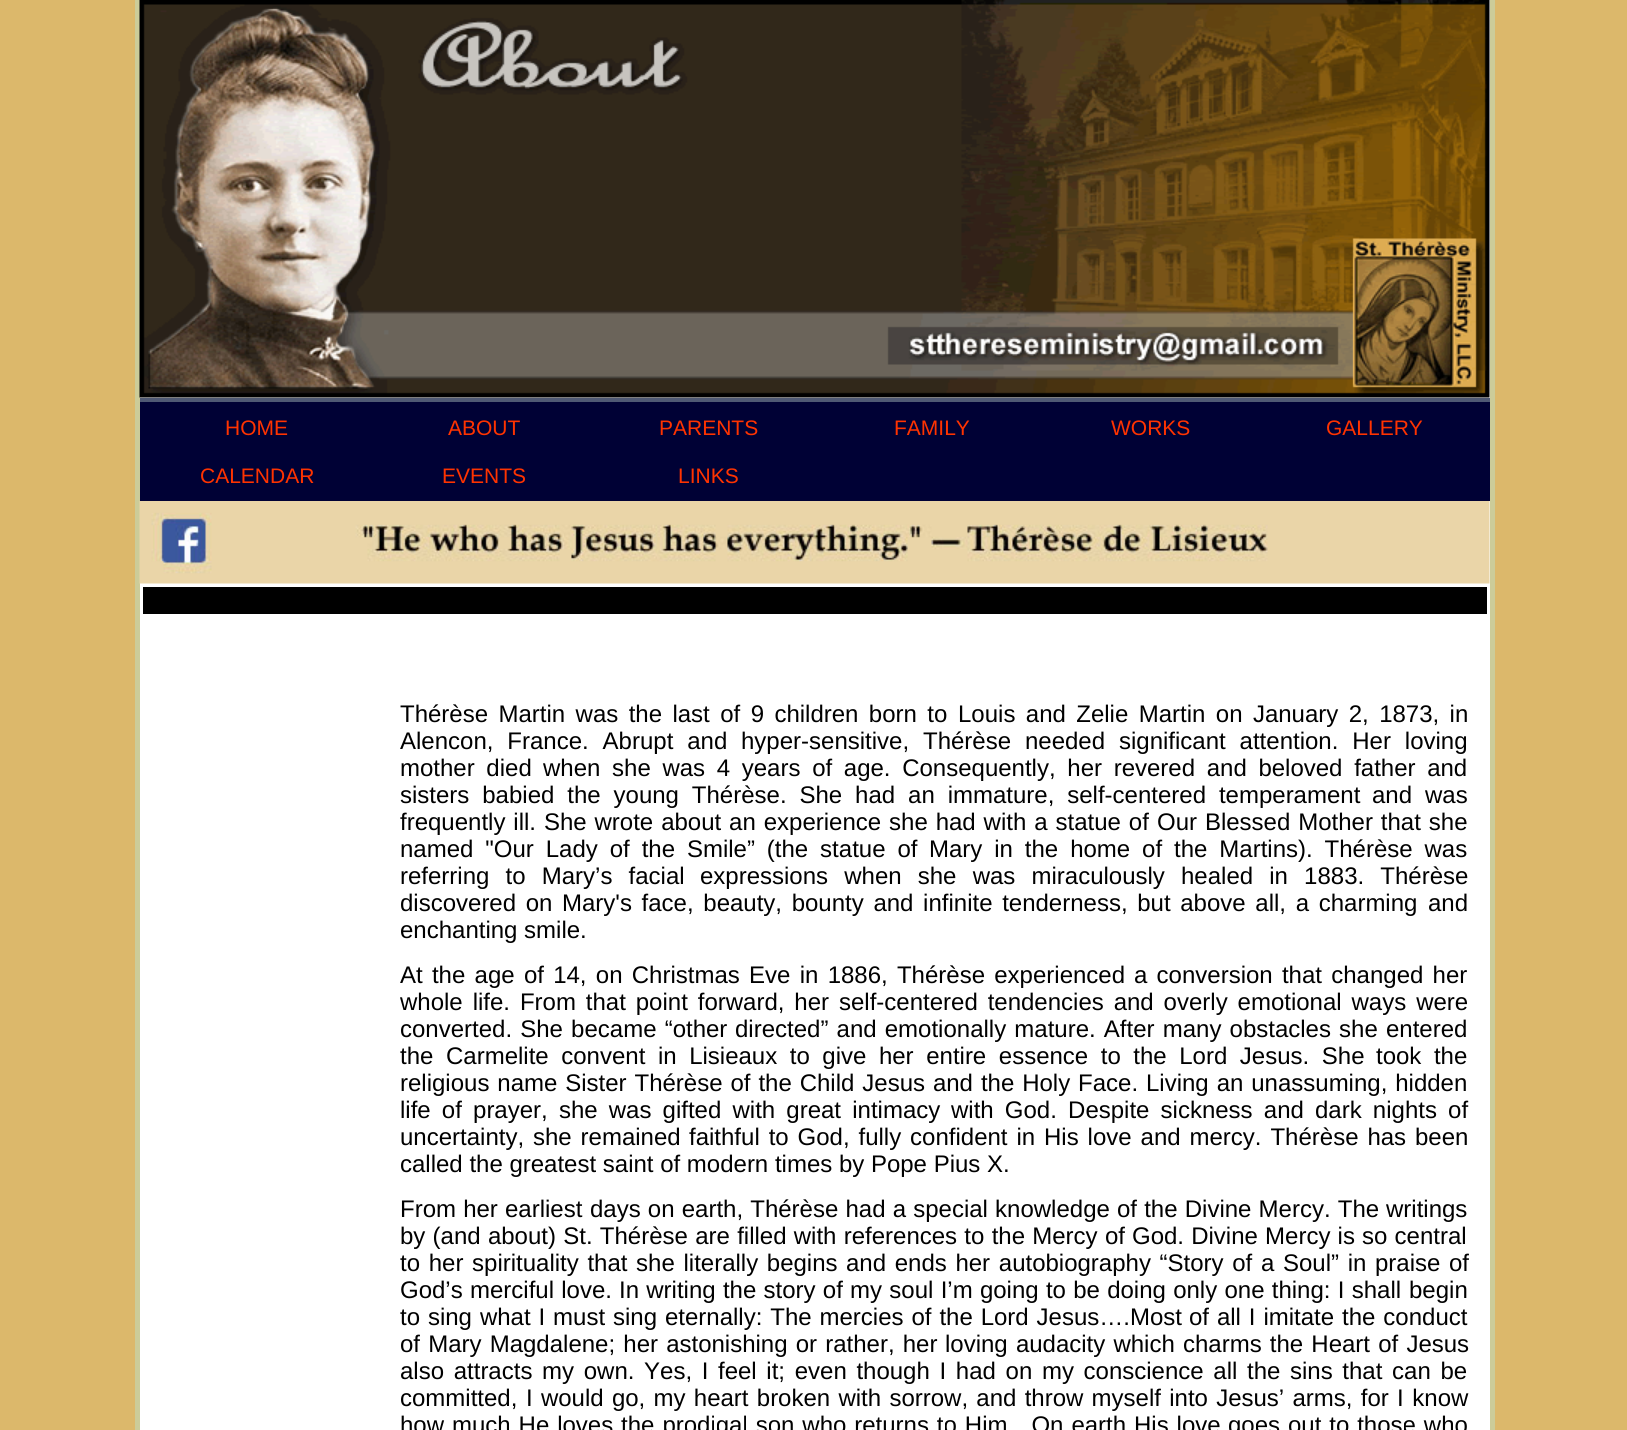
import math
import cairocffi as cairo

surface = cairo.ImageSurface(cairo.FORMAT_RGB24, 1627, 1430)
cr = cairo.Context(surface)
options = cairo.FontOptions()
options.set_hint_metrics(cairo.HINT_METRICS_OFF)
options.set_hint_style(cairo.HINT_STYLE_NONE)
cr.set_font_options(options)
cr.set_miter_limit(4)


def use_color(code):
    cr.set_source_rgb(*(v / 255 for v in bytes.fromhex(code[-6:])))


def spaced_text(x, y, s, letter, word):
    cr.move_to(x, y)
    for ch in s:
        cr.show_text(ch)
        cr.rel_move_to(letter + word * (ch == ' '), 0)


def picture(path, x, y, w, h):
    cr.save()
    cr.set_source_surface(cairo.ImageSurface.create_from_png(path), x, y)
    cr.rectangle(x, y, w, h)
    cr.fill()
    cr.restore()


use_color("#dcb86b")
cr.paint()
use_color("#ffffff")
cr.rectangle(140, 0, 1350, 1430)
cr.fill()
use_color("#cccc99")
cr.rectangle(1490, 0, 5, 1430)
cr.fill()
cr.rectangle(135, 0, 5, 1430)
cr.fill()
picture("img1.png", 139, 0, 1351, 398)
use_color("#4f5974")
cr.rectangle(140, 398, 1350, 4)
cr.fill()
use_color("#000135")
cr.rectangle(140, 402, 1350, 99)
cr.fill()
cr.select_font_face("Liberation Sans")
cr.set_font_size(21)
use_color("#ff3300")
cr.move_to(225, 435)
cr.show_text("HOME")
cr.move_to(448, 435)
cr.show_text("ABOUT")
cr.move_to(659, 435)
cr.show_text("PARENTS")
cr.move_to(894, 435)
cr.show_text("FAMILY")
cr.move_to(1111, 435)
cr.show_text("WORKS")
cr.move_to(1326, 435)
cr.show_text("GALLERY")
cr.move_to(200, 483)
cr.show_text("CALENDAR")
cr.move_to(442, 483)
cr.show_text("EVENTS")
cr.move_to(678, 483)
cr.show_text("LINKS")
picture("img2.png", 139, 501, 1351, 83)
use_color("#000000")
cr.rectangle(143, 587, 1344, 27)
cr.fill()
cr.set_font_size(24)
spaced_text(400, 722, "Thérèse Martin was the last of 9 children born to", 0, 3.75)
spaced_text(958, 722, "Louis and Zelie Martin on January 2, 1873, in", 0, 3.75)
spaced_text(400, 749, "Alencon, France. Abrupt and", 0, 7.25)
spaced_text(741, 749, "hyper-sensitive, Thérèse needed significant attention. Her loving", 0, 7.25)
spaced_text(400, 776, "mother died", 0, 5)
spaced_text(543, 776, "when she was 4 years of age. Consequently, her revered and beloved father and", 0, 5)
spaced_text(400, 803, "sisters babied the young Thérèse. She had an immature, self-centered temperament", 0, 6.25)
spaced_text(1372, 803, "and was", 0, 6.25)
spaced_text(400, 830, "frequently ill. She wrote about an experience she had with a statue of", 0, 1.25)
spaced_text(1157, 830, "Our Blessed Mother that she", 0, 1.25)
spaced_text(400, 857, "named \"Our Lady of the Smile” (the statue of", 0, 5.25)
spaced_text(929, 857, "Mary in the home of the Martins). Thérèse was", 0, 5.25)
spaced_text(400, 884, "referring to Mary’s facial", 0, 9.5)
spaced_text(700, 884, "expressions when she was miraculously healed in 1883. Thérèse", 0, 9.5)
spaced_text(400, 911, "discovered on", 0, 3)
spaced_text(562, 911, "Mary's face, beauty, bounty and infinite tenderness, but above all, a charming", 0, 3)
cr.move_to(1428, 911)
cr.show_text("and")
cr.move_to(400, 938)
cr.show_text("enchanting smile.")
spaced_text(400, 983, "At the age of 14, on Christmas Eve in 1886, Thérèse experienced", 0, 2.6)
spaced_text(1134, 983, "a conversion that changed her", 0, 2.6)
spaced_text(400, 1010, "whole life. From that point forward, her", 0, 3.25)
spaced_text(839, 1010, "self-centered tendencies and overly emotional ways were", 0, 3.25)
spaced_text(400, 1037, "converted. She became “other", 0, 1.5)
spaced_text(735, 1037, "directed” and emotionally mature. After many obstacles she entered", 0, 1.5)
cr.move_to(400, 1064)
cr.show_text("the")
spaced_text(446, 1064, "Carmelite convent in Lisieaux to give her entire essence to the Lord Jesus. She", 0, 5.9)
spaced_text(1376, 1064, "took the", 0, 5.9)
spaced_text(400, 1091, "religious name Sister Thérèse of the Child Jesus and the Holy Face.", 0, 1.25)
spaced_text(1146, 1091, "Living an unassuming, hidden", 0, 1.25)
spaced_text(400, 1118, "life of prayer, she was gifted with great intimacy", 0, 4.5)
spaced_text(951, 1118, "with God. Despite sickness and dark nights of", 0, 4.5)
spaced_text(400, 1145, "uncertainty, she remained", 0, 2.25)
spaced_text(689, 1145, "faithful to God, fully confident in His love and mercy. Thérèse has been", 0, 2.25)
cr.move_to(400, 1172)
cr.show_text("called the greatest saint of modern times by Pope Pius X.")
spaced_text(400, 1217, "From her earliest", 0, 0.5)
spaced_text(590, 1217, "days on earth, Thérèse had a special knowledge of the Divine Mercy. The", 0, 0.5)
cr.move_to(1386, 1217)
cr.show_text("writings")
spaced_text(400, 1244, "by (and about) St. Thérèse are filled with references to the Mercy of", 0, 0.6)
spaced_text(1132, 1244, "God. Divine Mercy is so central", 0, 0.5)
spaced_text(400, 1271, "to her spirituality that she literally begins", 0, 2)
spaced_text(846, 1271, "and ends her autobiography “Story of a Soul” in praise of", 0, 2)
spaced_text(400, 1298, "God’s merciful love.", 0, 0.6)
spaced_text(619, 1298, "In writing the story of my soul I’m going to be doing only one thing: I shall", 0, 0.6)
cr.move_to(1409, 1298)
cr.show_text("begin")
spaced_text(400, 1325, "to sing what I must sing eternally: The mercies of the Lord Jesus….Most", 0, 1.25)
spaced_text(1189, 1325, "of all I imitate the conduct", 0, 1.25)
spaced_text(400, 1352, "of Mary Magdalene; her astonishing or rather, her", 0, 1.5)
spaced_text(945, 1352, "loving audacity which charms the Heart of Jesus", 0, 1.5)
spaced_text(400, 1379, "also attracts my own. Yes, I", 0, 3)
spaced_text(718, 1379, "feel it; even though I had on my conscience all the sins that can be", 0, 3)
cr.move_to(400, 1406)
cr.show_text("committed,")
spaced_text(526, 1406, "I would go, my heart broken with sorrow, and throw myself into Jesus’ arms, for", 0, 1.6)
spaced_text(1397, 1406, "I know", 0, 2)
spaced_text(400, 1433, "how much He loves the prodigal son who returns to Him…On earth His love", 0, 1.25)
spaced_text(1228, 1433, "goes out to those who", 0, 1.25)
surface.write_to_png("result.png")
